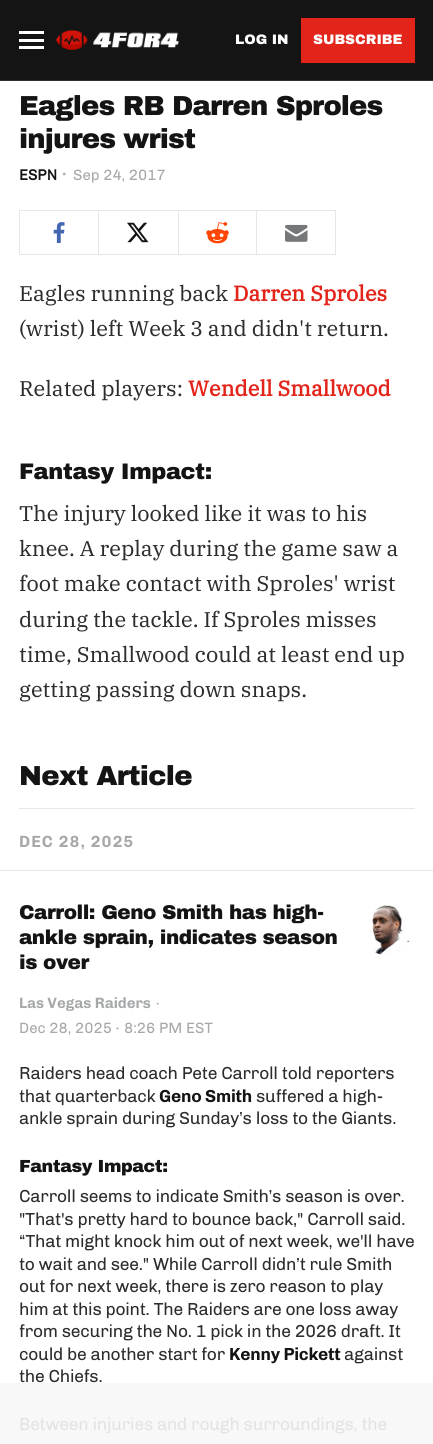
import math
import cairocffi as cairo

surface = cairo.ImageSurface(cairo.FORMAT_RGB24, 433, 1444)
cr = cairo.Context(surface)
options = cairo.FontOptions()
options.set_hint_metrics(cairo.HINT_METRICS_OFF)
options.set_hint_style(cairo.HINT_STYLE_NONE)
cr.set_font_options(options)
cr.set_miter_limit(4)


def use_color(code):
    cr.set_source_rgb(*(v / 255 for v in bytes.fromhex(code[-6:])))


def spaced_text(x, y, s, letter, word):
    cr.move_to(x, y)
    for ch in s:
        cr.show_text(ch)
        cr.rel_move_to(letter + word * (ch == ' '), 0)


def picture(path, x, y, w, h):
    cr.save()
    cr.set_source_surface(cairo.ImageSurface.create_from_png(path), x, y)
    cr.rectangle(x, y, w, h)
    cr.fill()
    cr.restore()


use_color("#ffffff")
cr.paint()
use_color("#f8f8f8")
cr.rectangle(0, 1383, 433, 61)
cr.fill()
use_color("#141414")
cr.rectangle(0, 0, 433, 80)
cr.fill()
use_color("#2d2d2d")
cr.rectangle(0, 80, 433, 1)
cr.fill()
use_color("#ffffff")
cr.rectangle(19, 39, 25, 3)
cr.fill()
cr.rectangle(19, 31, 25, 3)
cr.fill()
cr.rectangle(19, 46, 25, 3)
cr.fill()
picture("img1.png", 56, 30, 123, 20)
cr.select_font_face("archivo Black")
cr.set_font_size(13.75)
cr.move_to(235, 44)
cr.show_text("LOG IN")
use_color("#e3241a")
cr.rectangle(301, 18, 114, 45)
cr.fill()
use_color("#ffffff")
cr.move_to(313, 44)
cr.show_text("SUBSCRIBE")
cr.set_font_size(27.5)
use_color("#141414")
spaced_text(19, 115, "Eagles RB Darren Sproles", -0.9, 0)
spaced_text(19, 148, "injures wrist", -0.9, 0)
cr.select_font_face("chivo", cairo.FONT_SLANT_NORMAL, cairo.FONT_WEIGHT_BOLD)
cr.set_font_size(15)
cr.move_to(19, 180)
cr.show_text("ESPN")
cr.select_font_face("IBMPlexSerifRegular")
cr.set_font_size(20)
use_color("#a6a8aa")
cr.move_to(61, 180)
cr.show_text("·")
cr.select_font_face("chivo")
cr.set_font_size(15)
cr.move_to(73, 180)
cr.show_text("Sep 24, 2017")
use_color("#e7e7e7")
cr.rectangle(19, 210, 237, 1)
cr.fill()
cr.rectangle(19, 254, 237, 1)
cr.fill()
cr.rectangle(19, 210, 1, 45)
cr.fill()
picture("img2.png", 53, 222, 12, 21)
cr.rectangle(98, 210, 1, 45)
cr.fill()
picture("img3.png", 127, 222, 22, 21)
cr.rectangle(178, 210, 1, 45)
cr.fill()
picture("img4.png", 206, 222, 23, 22)
cr.rectangle(256.5, 210.5, 79, 44)
cr.set_line_width(1)
cr.stroke()
picture("img5.png", 285, 224, 23, 18)
cr.select_font_face("IBMPlexSerifRegular")
cr.set_font_size(21.25)
use_color("#2d2d2d")
cr.move_to(19, 301)
cr.show_text("Eagles running back")
cr.select_font_face("IBMPlexSerifRegular", cairo.FONT_SLANT_NORMAL, cairo.FONT_WEIGHT_BOLD)
use_color("#e3241a")
cr.move_to(233, 301)
cr.show_text("Darren Sproles")
cr.select_font_face("IBMPlexSerifRegular")
use_color("#2d2d2d")
cr.move_to(19, 336)
cr.show_text("(wrist) left Week 3 and didn't return.")
cr.move_to(19, 396)
cr.show_text("Related players:")
cr.select_font_face("IBMPlexSerifRegular", cairo.FONT_SLANT_NORMAL, cairo.FONT_WEIGHT_BOLD)
use_color("#e3241a")
cr.move_to(188, 396)
cr.show_text("Wendell Smallwood")
cr.select_font_face("archivo Black")
cr.set_font_size(22.5)
use_color("#141414")
spaced_text(19, 479, "Fantasy Impact:", -0.4, 0)
cr.select_font_face("IBMPlexSerifRegular")
cr.set_font_size(21.25)
use_color("#2d2d2d")
cr.move_to(19, 521)
cr.show_text("The injury looked like it was to his")
cr.move_to(19, 556)
cr.show_text("knee. A replay during the game saw a")
cr.move_to(19, 591)
cr.show_text("foot make contact with Sproles' wrist")
cr.move_to(19, 627)
cr.show_text("during the tackle. If Sproles misses")
cr.move_to(19, 662)
cr.show_text("time, Smallwood could at least end up")
cr.move_to(19, 697)
cr.show_text("getting passing down snaps.")
use_color("#e7e7e7")
cr.rectangle(19, 808, 396, 1)
cr.fill()
cr.select_font_face("archivo Black")
cr.set_font_size(27.5)
use_color("#141414")
spaced_text(19, 785, "Next Article", -0.75, 0)
use_color("#e7e7e7")
cr.rectangle(0, 870, 433, 1)
cr.fill()
cr.select_font_face("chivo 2", cairo.FONT_SLANT_NORMAL, cairo.FONT_WEIGHT_BOLD)
cr.set_font_size(16.25)
use_color("#a6a8aa")
spaced_text(19, 847, "DEC 28, 2025", 1, 0)
cr.select_font_face("archivo Black")
cr.set_font_size(20)
use_color("#141414")
spaced_text(19, 919, "Carroll: Geno Smith has high-", -0.5, 0)
spaced_text(19, 944, "ankle sprain, indicates season", -0.5, 0)
spaced_text(19, 969, "is over", -0.5, 0)
cr.select_font_face("chivo 2", cairo.FONT_SLANT_NORMAL, cairo.FONT_WEIGHT_BOLD)
cr.set_font_size(15)
use_color("#a6a8aa")
cr.move_to(19, 1008)
cr.show_text("Las Vegas Raiders")
cr.select_font_face("chivo")
cr.move_to(156, 1008)
cr.show_text("·")
cr.move_to(19, 1033)
cr.show_text("Dec 28, 2025")
cr.select_font_face("IBMPlexSerifRegular")
cr.move_to(115, 1033)
cr.show_text("·")
cr.select_font_face("chivo")
cr.move_to(124, 1033)
cr.show_text("8:26 PM EST")
picture("img6.png", 372, 905, 38, 50)
cr.set_font_size(17.5)
use_color("#2d2d2d")
spaced_text(19, 1079, "Raiders head coach Pete Carroll told reporters", -0.25, 0)
spaced_text(19, 1102, "that quarterback", -0.25, 0)
cr.select_font_face("chivo 2", cairo.FONT_SLANT_NORMAL, cairo.FONT_WEIGHT_BOLD)
use_color("#141414")
spaced_text(159, 1102, "Geno Smith", -0.25, 0)
cr.select_font_face("chivo")
use_color("#2d2d2d")
spaced_text(256, 1102, "suffered a high-", -0.25, 0)
spaced_text(19, 1124, "ankle sprain during Sunday’s loss to the Giants.", -0.25, 0)
cr.select_font_face("archivo Black")
use_color("#141414")
spaced_text(19, 1172, "Fantasy Impact:", -0.4, 0)
cr.select_font_face("chivo")
use_color("#2d2d2d")
spaced_text(19, 1202, "Carroll seems to indicate Smith’s season is over.", -0.25, 0)
spaced_text(19, 1225, "\"That's pretty hard to bounce back,\" Carroll said.", -0.25, 0)
spaced_text(19, 1247, "“That might knock him out of next week, we'll have", -0.25, 0)
spaced_text(19, 1270, "to wait and see.\" While Carroll didn’t rule Smith", -0.25, 0)
spaced_text(19, 1292, "out for next week, there is zero reason to play", -0.25, 0)
spaced_text(19, 1315, "him at this point. The Raiders are one loss away", -0.25, 0)
spaced_text(19, 1337, "from securing the No. 1 pick in the 2026 draft. It", -0.25, 0)
spaced_text(19, 1360, "could be another start for", -0.25, 0)
cr.select_font_face("chivo 2", cairo.FONT_SLANT_NORMAL, cairo.FONT_WEIGHT_BOLD)
use_color("#141414")
spaced_text(229, 1360, "Kenny Pickett", -0.25, 0)
cr.select_font_face("chivo")
use_color("#2d2d2d")
spaced_text(344, 1360, "against", -0.25, 0)
spaced_text(19, 1382, "the Chiefs.", -0.25, 0)
use_color("#e3e3e3")
spaced_text(19, 1430, "Between injuries and rough surroundings, the", -0.25, 0)
surface.write_to_png("result.png")
